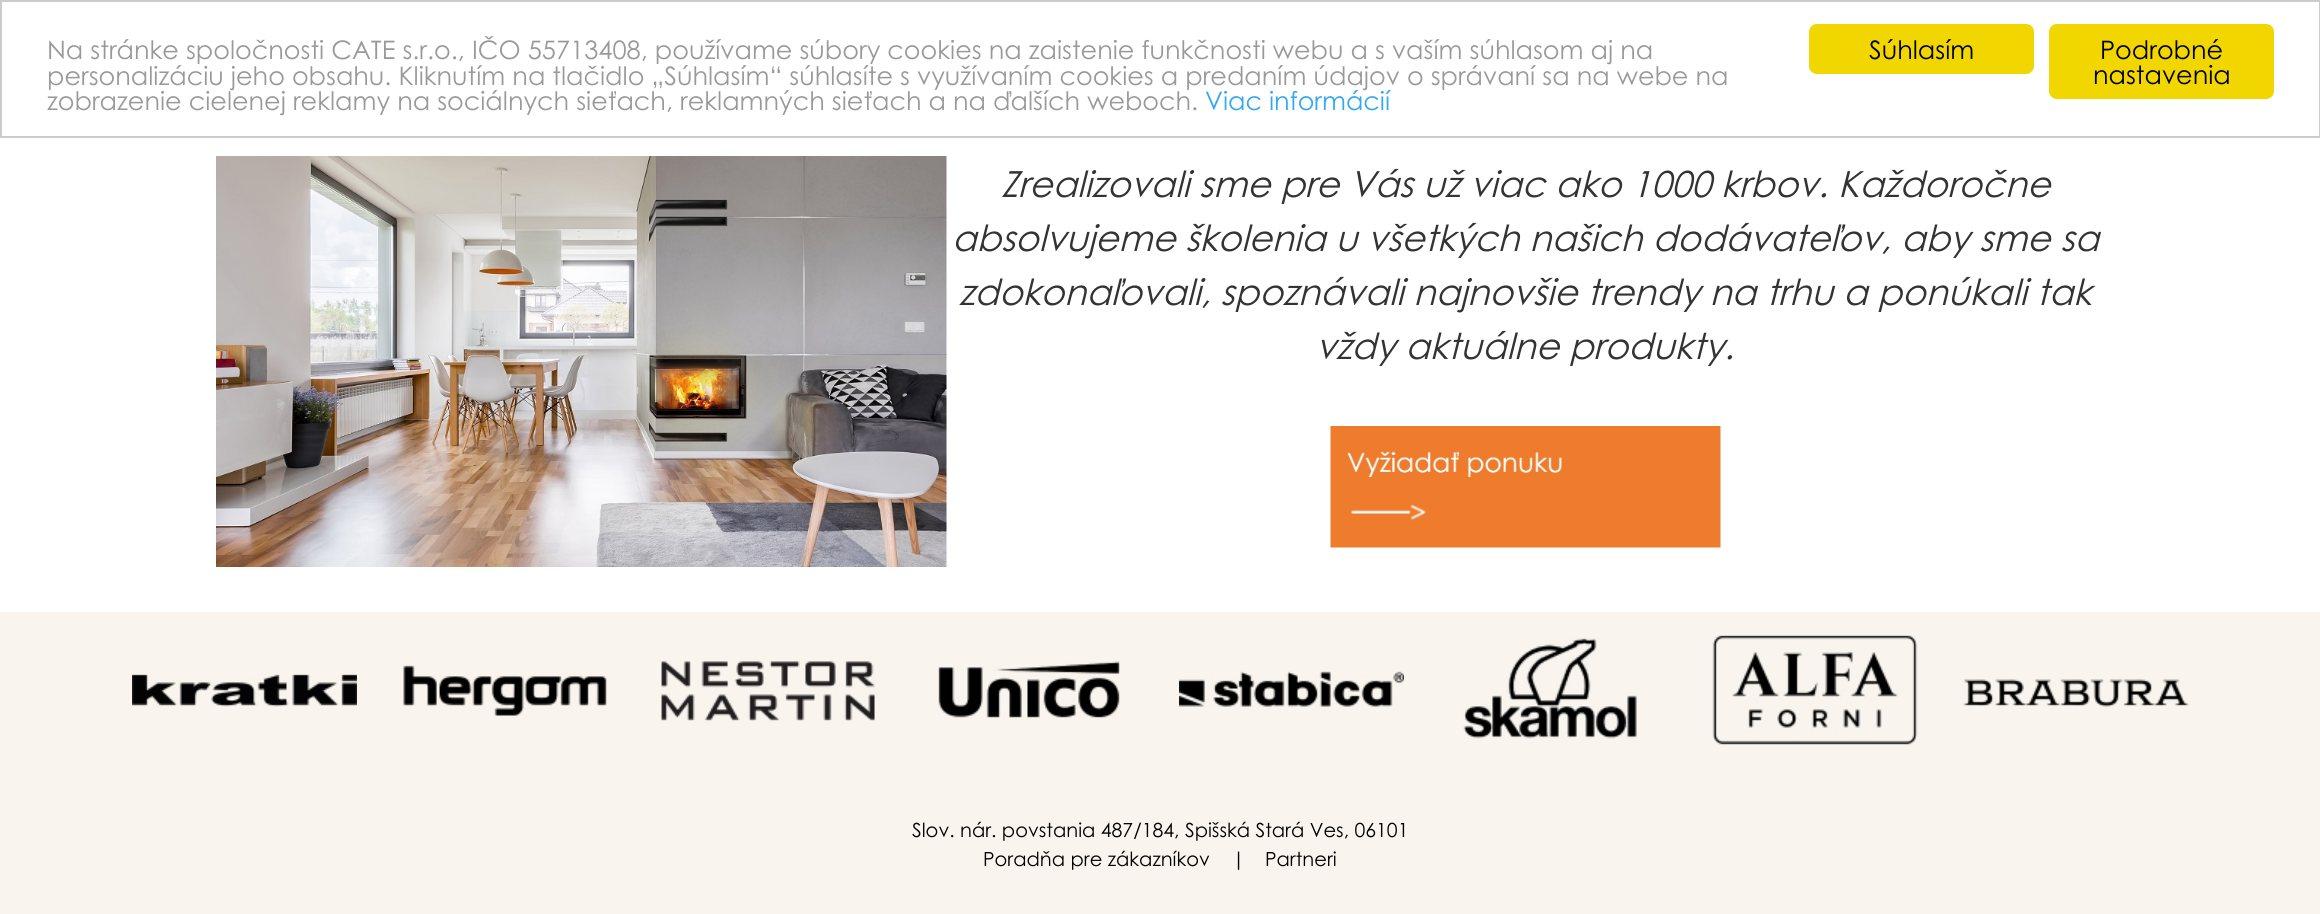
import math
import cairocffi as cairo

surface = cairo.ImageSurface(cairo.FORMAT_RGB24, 2320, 914)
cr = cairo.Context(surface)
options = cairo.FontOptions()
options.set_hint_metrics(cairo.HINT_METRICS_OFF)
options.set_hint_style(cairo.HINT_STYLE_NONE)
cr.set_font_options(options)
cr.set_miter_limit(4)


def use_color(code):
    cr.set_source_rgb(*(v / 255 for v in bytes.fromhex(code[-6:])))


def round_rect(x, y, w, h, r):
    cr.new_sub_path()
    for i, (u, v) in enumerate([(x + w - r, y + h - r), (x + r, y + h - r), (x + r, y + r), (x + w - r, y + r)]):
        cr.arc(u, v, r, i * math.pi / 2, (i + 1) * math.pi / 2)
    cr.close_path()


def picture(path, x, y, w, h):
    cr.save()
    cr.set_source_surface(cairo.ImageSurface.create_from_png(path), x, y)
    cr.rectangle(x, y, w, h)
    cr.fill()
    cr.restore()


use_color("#f9f4ee")
cr.paint()
use_color("#ffffff")
cr.rectangle(1, 1, 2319, 136)
cr.fill_preserve()
use_color("#cccccc")
cr.stroke()
cr.select_font_face("Century Gothic")
cr.set_font_size(25.5)
use_color("#999999")
cr.move_to(47, 59)
cr.show_text("Na stránke spoločnosti CATE s.r.o., IČO 55713408, používame súbory cookies na zaistenie funkčnosti webu a s vaším súhlasom aj na")
cr.move_to(47, 85)
cr.show_text("personalizáciu jeho obsahu. Kliknutím na tlačidlo „Súhlasím“ súhlasíte s využívaním cookies a predaním údajov o správaní sa na webe na")
cr.move_to(47, 110)
cr.show_text("zobrazenie cielenej reklamy na sociálnych sieťach, reklamných sieťach a na ďalších weboch.")
use_color("#31a8f0")
cr.move_to(1205, 110)
cr.show_text("Viac informácií")
use_color("#f1d600")
round_rect(1809, 24, 225, 50, 8)
cr.fill()
use_color("#000000")
cr.move_to(1869, 59)
cr.show_text("Súhlasím")
use_color("#f1d600")
round_rect(2049, 24, 225, 75, 8)
cr.fill()
use_color("#000000")
cr.move_to(2100, 59)
cr.show_text("Podrobné")
cr.move_to(2093, 84)
cr.show_text("nastavenia")
use_color("#ffffff")
cr.rectangle(0, 138, 2320, 474)
cr.fill()
picture("img1.png", 216, 156, 731, 411)
cr.select_font_face("Century Gothic", cairo.FONT_SLANT_ITALIC)
cr.set_font_size(36)
use_color("#333333")
cr.move_to(1001, 197)
cr.show_text("Zrealizovali sme pre Vás už viac ako 1000 krbov. Každoročne")
cr.move_to(952, 251)
cr.show_text("absolvujeme školenia u všetkých našich dodávateľov, aby sme sa")
cr.move_to(959, 305)
cr.show_text("zdokonaľovali, spoznávali najnovšie trendy na trhu a ponúkali tak")
cr.move_to(1316, 359)
cr.show_text("vždy aktuálne produkty.")
picture("img2.png", 1330, 426, 391, 122)
picture("img3.png", 132, 674, 225, 33)
picture("img4.png", 403, 665, 204, 51)
picture("img5.png", 661, 661, 214, 60)
picture("img6.png", 938, 661, 182, 57)
picture("img7.png", 1179, 671, 225, 36)
picture("img8.png", 1463, 638, 174, 101)
picture("img9.png", 1712, 635, 206, 110)
picture("img10.png", 1963, 679, 226, 28)
cr.select_font_face("Century Gothic")
cr.set_font_size(19.5)
use_color("#000000")
cr.move_to(912, 837)
cr.show_text("Slov. nár. povstania 487/184, Spišská Stará Ves, 06101")
cr.move_to(983, 866)
cr.show_text("Poradňa pre zákazníkov")
cr.move_to(1232, 866)
cr.show_text("|")
cr.move_to(1265, 866)
cr.show_text("Partneri")
surface.write_to_png("result.png")
